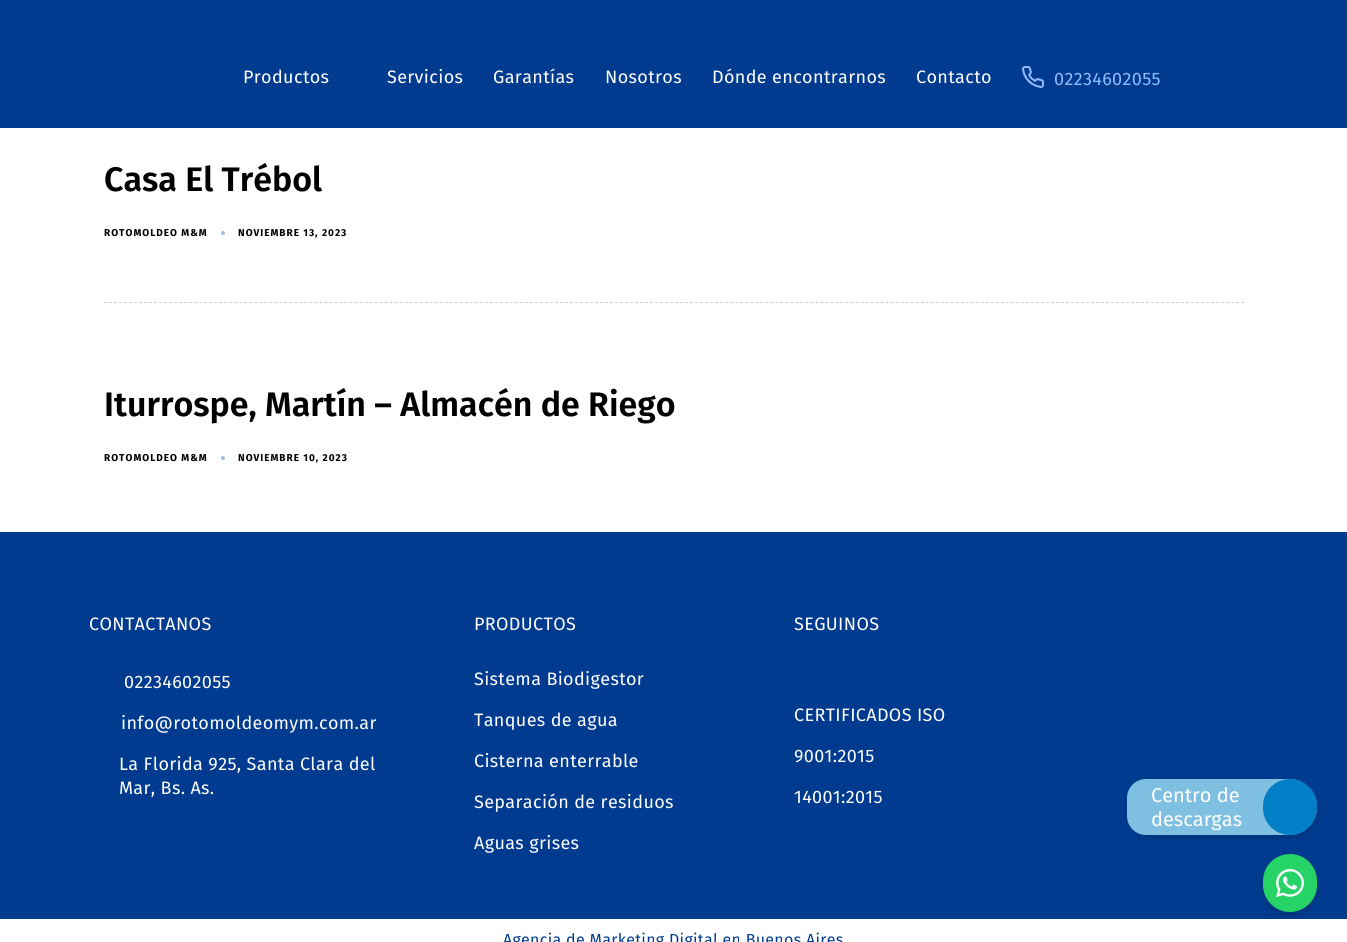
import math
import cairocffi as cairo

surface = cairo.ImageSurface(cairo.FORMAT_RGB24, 1347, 942)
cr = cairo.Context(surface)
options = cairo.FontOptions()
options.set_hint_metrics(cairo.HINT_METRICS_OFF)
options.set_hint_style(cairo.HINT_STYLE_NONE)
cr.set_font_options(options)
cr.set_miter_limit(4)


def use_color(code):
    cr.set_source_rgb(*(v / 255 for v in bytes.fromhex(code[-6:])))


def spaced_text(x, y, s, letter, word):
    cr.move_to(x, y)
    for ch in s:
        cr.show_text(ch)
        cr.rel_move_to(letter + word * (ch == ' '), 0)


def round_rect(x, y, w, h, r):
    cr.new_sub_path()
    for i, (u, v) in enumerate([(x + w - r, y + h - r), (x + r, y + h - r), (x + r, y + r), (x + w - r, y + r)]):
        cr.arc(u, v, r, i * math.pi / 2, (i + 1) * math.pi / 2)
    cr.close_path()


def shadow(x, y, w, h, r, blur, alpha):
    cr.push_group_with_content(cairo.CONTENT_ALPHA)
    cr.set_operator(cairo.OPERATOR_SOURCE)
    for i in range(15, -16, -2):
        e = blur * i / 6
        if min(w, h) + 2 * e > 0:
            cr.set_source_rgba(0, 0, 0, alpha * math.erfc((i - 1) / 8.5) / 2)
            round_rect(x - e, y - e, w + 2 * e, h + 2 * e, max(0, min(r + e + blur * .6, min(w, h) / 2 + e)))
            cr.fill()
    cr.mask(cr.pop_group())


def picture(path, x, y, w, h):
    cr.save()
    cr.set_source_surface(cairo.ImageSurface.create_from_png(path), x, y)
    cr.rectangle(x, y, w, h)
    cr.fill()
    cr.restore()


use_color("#ffffff")
cr.paint()
use_color("#003b8f")
cr.rectangle(0, 0, 1347, 128)
cr.fill()
cr.select_font_face("Fira Sans")
cr.set_font_size(18)
use_color("#ffffff")
spaced_text(243, 83, "Productos", 0.35, 0)
spaced_text(387, 83, "Servicios", 0.35, 0)
spaced_text(493, 83, "Garantías", 0.35, 0)
spaced_text(605, 83, "Nosotros", 0.35, 0)
spaced_text(712, 83, "Dónde encontrarnos", 0.35, 0)
spaced_text(916, 83, "Contacto", 0.35, 0)
picture("img1.png", 1022, 66, 22, 22)
use_color("#91b9ff")
spaced_text(1054, 85, "02234602055", 0.35, 0)
cr.new_path()
cr.move_to(104, 302.5)
cr.line_to(1244, 302.5)
use_color("#cecece")
cr.set_line_width(1)
cr.set_dash([3, 2.01])
cr.stroke()
cr.select_font_face("Fira Sans SemiBold")
cr.set_font_size(34)
use_color("#000000")
cr.move_to(104, 191)
cr.show_text("Casa El Trébol")
cr.select_font_face("Fira Sans", cairo.FONT_SLANT_NORMAL, cairo.FONT_WEIGHT_BOLD)
cr.set_font_size(10)
spaced_text(104, 236, "ROTOMOLDEO M&M", 1, 0)
use_color("#a6bad8")
cr.new_path()
cr.arc(223, 233, 2, 0, 2 * math.pi)
cr.fill()
use_color("#000000")
spaced_text(238, 236, "NOVIEMBRE 13, 2023", 1, 0)
cr.select_font_face("Fira Sans SemiBold")
cr.set_font_size(34)
cr.move_to(104, 416)
cr.show_text("Iturrospe, Martín – Almacén de Riego")
cr.select_font_face("Fira Sans", cairo.FONT_SLANT_NORMAL, cairo.FONT_WEIGHT_BOLD)
cr.set_font_size(10)
spaced_text(104, 461, "ROTOMOLDEO M&M", 1, 0)
use_color("#a6bad8")
cr.new_path()
cr.arc(223, 458, 2, 0, 2 * math.pi)
cr.fill()
use_color("#000000")
spaced_text(238, 461, "NOVIEMBRE 10, 2023", 1, 0)
use_color("#003b8f")
cr.rectangle(0, 532, 1347, 387)
cr.fill()
cr.select_font_face("Fira Sans")
cr.set_font_size(18)
use_color("#ffffff")
spaced_text(89, 630, "CONTACTANOS", 0.35, 0)
spaced_text(124, 688, "02234602055", 0.35, 0)
spaced_text(121, 729, "info@rotomoldeomym.com.ar", 0.35, 0)
spaced_text(119, 770, "La Florida 925, Santa Clara del", 0.35, 0)
spaced_text(119, 794, "Mar, Bs. As.", 0.35, 0)
spaced_text(474, 630, "PRODUCTOS", 0.35, 0)
spaced_text(474, 685, "Sistema Biodigestor", 0.35, 0)
spaced_text(474, 726, "Tanques de agua", 0.35, 0)
spaced_text(474, 767, "Cisterna enterrable", 0.35, 0)
spaced_text(474, 808, "Separación de residuos", 0.35, 0)
spaced_text(474, 849, "Aguas grises", 0.35, 0)
spaced_text(794, 630, "SEGUINOS", 0.35, 0)
spaced_text(794, 721, "CERTIFICADOS ISO", 0.35, 0)
spaced_text(794, 762, "9001:2015", 0.35, 0)
spaced_text(794, 803, "14001:2015", 0.35, 0)
use_color("#000000")
shadow(1127, 782, 190, 56, 28, 3, 0.16)
use_color("#7fbfe2")
cr.new_path()
cr.move_to(1146, 779)
cr.line_to(1289, 779)
cr.curve_to(1304.5, 779, 1317, 791.5, 1317, 807)
cr.curve_to(1317, 822.5, 1304.5, 835, 1289, 835)
cr.line_to(1146, 835)
cr.curve_to(1135.5, 835, 1127, 826.5, 1127, 816)
cr.line_to(1127, 798)
cr.curve_to(1127, 787.5, 1135.5, 779, 1146, 779)
cr.close_path()
cr.fill()
cr.set_font_size(20)
use_color("#ffffff")
cr.move_to(1151, 802)
cr.show_text("Centro de")
cr.move_to(1151, 826)
cr.show_text("descargas")
use_color("#007fc6")
round_rect(1263, 779, 54, 56, 27)
cr.fill()
use_color("#000000")
shadow(1263, 857, 54, 58, 27, 3, 0.16)
use_color("#25d366")
round_rect(1263, 854, 54, 58, 27)
cr.fill()
picture("img2.png", 1276, 869, 28, 28)
cr.set_font_size(16)
use_color("#003b8f")
spaced_text(503, 945, "Agencia de Marketing Digital en Buenos Aires", 0.3, 0)
surface.write_to_png("result.png")
